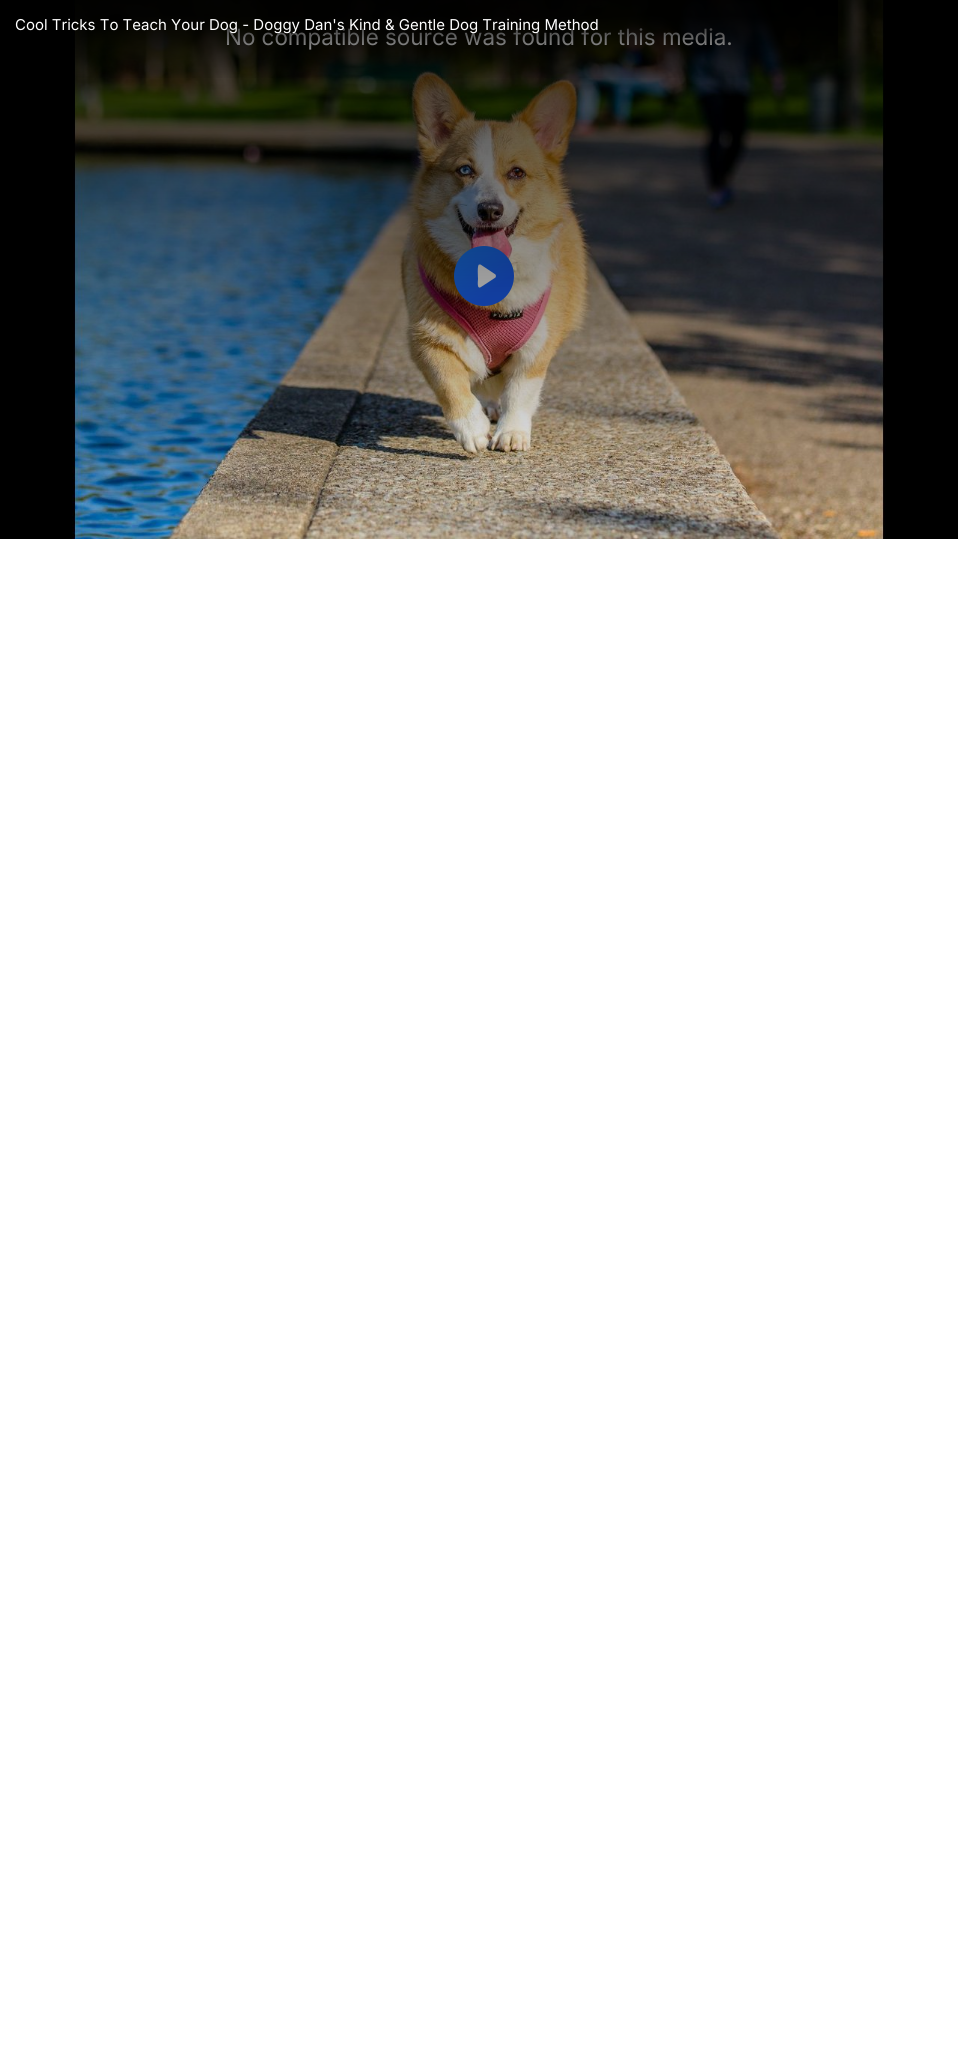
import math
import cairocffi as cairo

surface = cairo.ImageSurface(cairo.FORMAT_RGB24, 958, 2053)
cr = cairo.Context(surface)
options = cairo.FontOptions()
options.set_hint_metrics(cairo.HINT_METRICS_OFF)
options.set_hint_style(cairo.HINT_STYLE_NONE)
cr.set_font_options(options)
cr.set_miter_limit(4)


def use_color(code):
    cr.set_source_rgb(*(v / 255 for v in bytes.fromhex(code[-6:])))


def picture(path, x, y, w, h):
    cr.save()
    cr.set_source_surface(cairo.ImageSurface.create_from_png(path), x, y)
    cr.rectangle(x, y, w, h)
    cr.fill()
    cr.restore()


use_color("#ffffff")
cr.paint()
use_color("#000000")
cr.rectangle(0, 0, 958, 539)
cr.fill()
picture("img1.png", 72, 0, 814, 539)
gradient = cairo.LinearGradient(459, 245, 495, 289)
gradient.add_color_stop_rgba(0, 0.102, 0.494, 0.98, 1)
gradient.add_color_stop_rgba(1, 0.11, 0.38, 0.976, 1)
cr.set_source(gradient)
cr.arc(484, 276, 30, 0, 2 * math.pi)
cr.fill()
use_color("#ffffff")
cr.new_path()
cr.move_to(481, 287)
cr.curve_to(476.5, 290, 478, 280.5, 478, 279)
cr.curve_to(478, 277, 477, 265.5, 479, 264.5)
cr.line_to(480.5, 264.5)
cr.line_to(495.5, 274.5)
cr.line_to(496, 276)
cr.line_to(495.5, 277.5)
cr.close_path()
cr.fill()
gradient = cairo.LinearGradient(479, 0, 479, 539)
gradient.add_color_stop_rgba(0, 0, 0, 0, 0.8)
gradient.add_color_stop_rgba(1, 0, 0, 0, 0)
cr.set_source(gradient)
cr.rectangle(72, 0, 814, 524)
cr.fill()
cr.select_font_face("Inter")
cr.set_font_size(22.4)
use_color("#ffffff")
cr.move_to(225, 45)
cr.show_text("No compatible source was found for this media.")
gradient = cairo.LinearGradient(419, 0, 419, 81)
gradient.add_color_stop_rgba(0.2, 0, 0, 0, 0.9)
gradient.add_color_stop_rgba(1, 0, 0, 0, 0)
cr.set_source(gradient)
cr.rectangle(75, 0, 763, 78)
cr.fill()
cr.set_font_size(15)
use_color("#ffffff")
cr.move_to(15, 30)
cr.show_text("Cool Tricks To Teach Your Dog - Doggy Dan's Kind & Gentle Dog Training Method")
surface.write_to_png("result.png")
